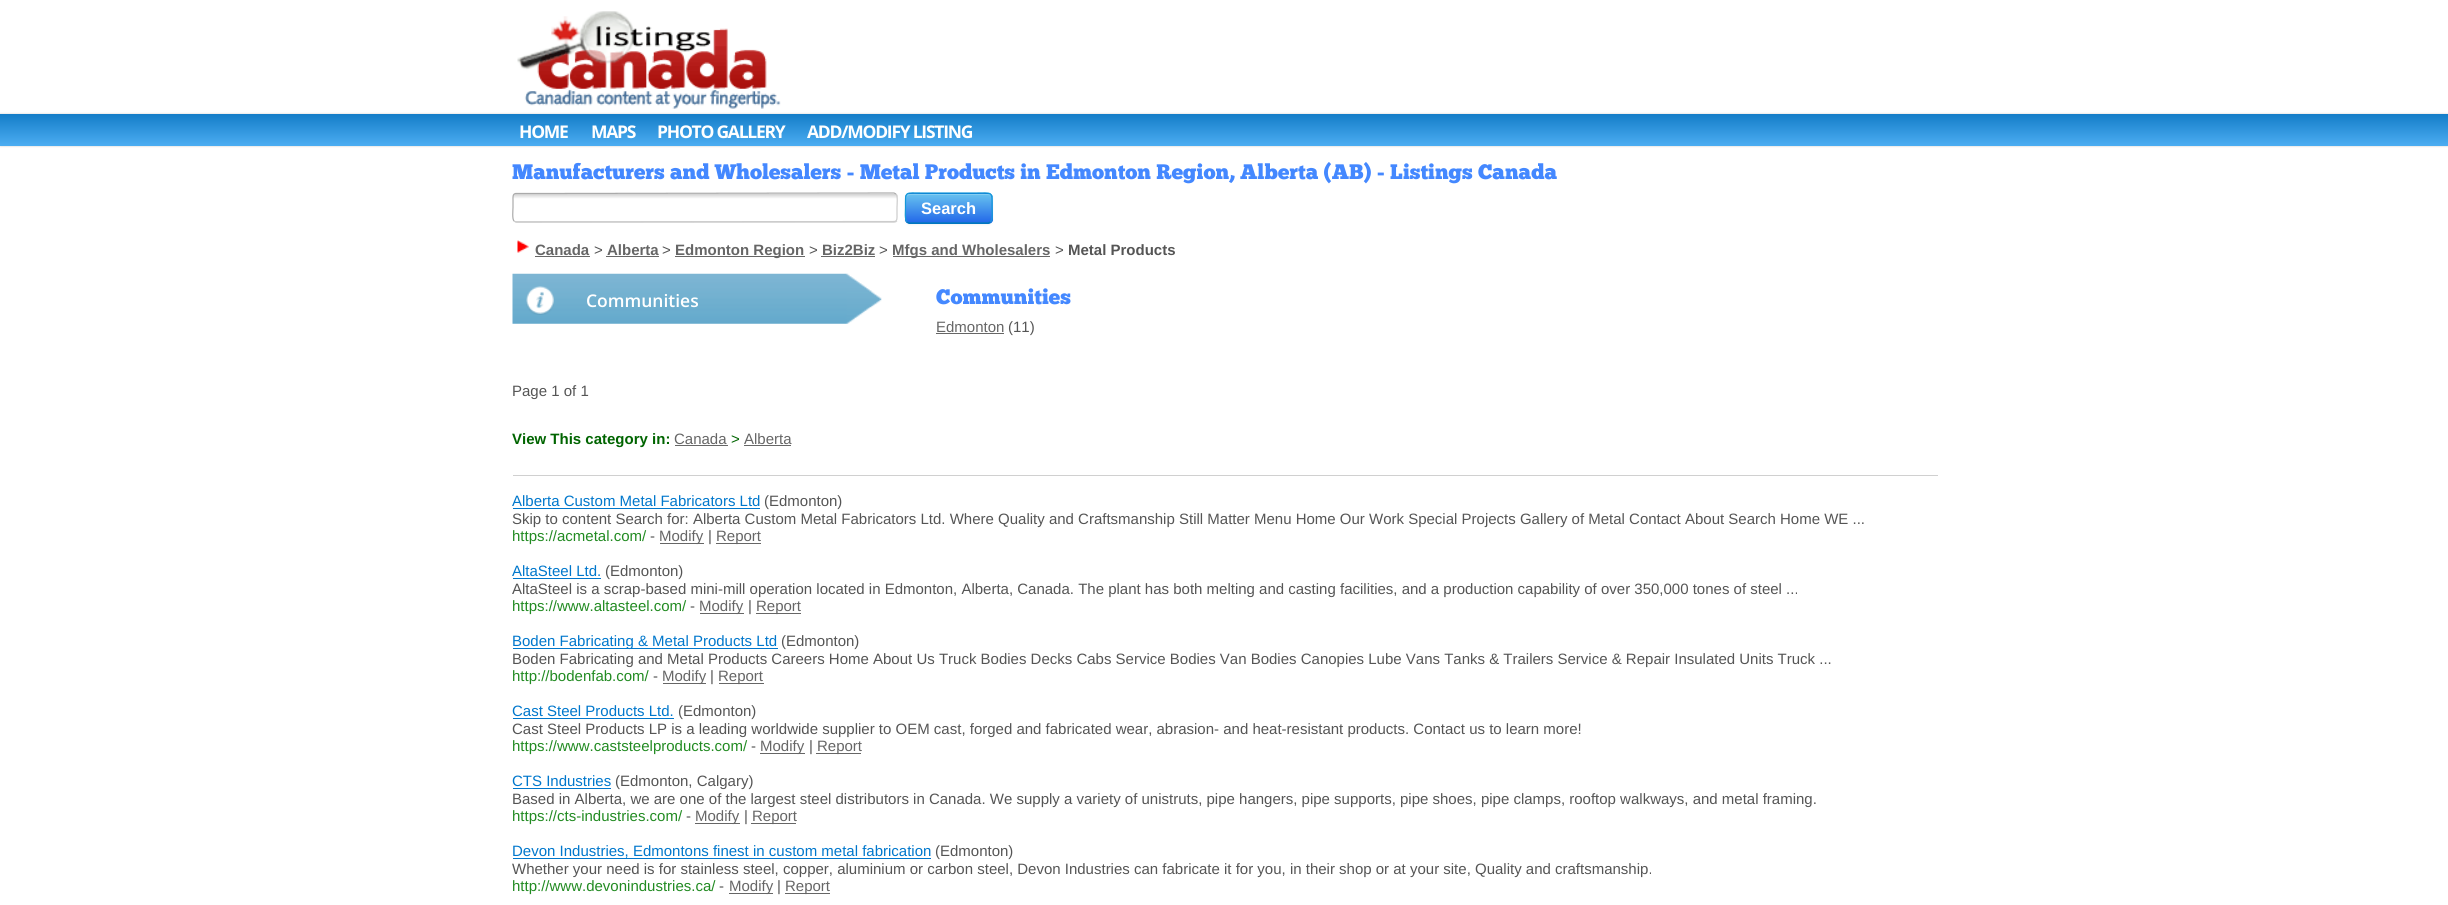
import math
import cairocffi as cairo

surface = cairo.ImageSurface(cairo.FORMAT_RGB24, 2448, 905)
cr = cairo.Context(surface)
options = cairo.FontOptions()
options.set_hint_metrics(cairo.HINT_METRICS_OFF)
options.set_hint_style(cairo.HINT_STYLE_NONE)
cr.set_font_options(options)
cr.set_miter_limit(4)


def use_color(code):
    cr.set_source_rgb(*(v / 255 for v in bytes.fromhex(code[-6:])))


def spaced_text(x, y, s, letter, word):
    cr.move_to(x, y)
    for ch in s:
        cr.show_text(ch)
        cr.rel_move_to(letter + word * (ch == ' '), 0)


def round_rect(x, y, w, h, r):
    cr.new_sub_path()
    for i, (u, v) in enumerate([(x + w - r, y + h - r), (x + r, y + h - r), (x + r, y + r), (x + w - r, y + r)]):
        cr.arc(u, v, r, i * math.pi / 2, (i + 1) * math.pi / 2)
    cr.close_path()


def shadow(x, y, w, h, r, blur, alpha):
    cr.push_group_with_content(cairo.CONTENT_ALPHA)
    cr.set_operator(cairo.OPERATOR_SOURCE)
    for i in range(15, -16, -2):
        e = blur * i / 6
        if min(w, h) + 2 * e > 0:
            cr.set_source_rgba(0, 0, 0, alpha * math.erfc((i - 1) / 8.5) / 2)
            round_rect(x - e, y - e, w + 2 * e, h + 2 * e, max(0, min(r + e + blur * .6, min(w, h) / 2 + e)))
            cr.fill()
    cr.mask(cr.pop_group())


def picture(path, x, y, w, h):
    cr.save()
    cr.set_source_surface(cairo.ImageSurface.create_from_png(path), x, y)
    cr.rectangle(x, y, w, h)
    cr.fill()
    cr.restore()


use_color("#ffffff")
cr.paint()
picture("img1.png", 517, 11, 264, 98)
use_color("#000000")
shadow(0, 114, 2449, 32, 0, 1, 0.2)
gradient = cairo.LinearGradient(1224, 114, 1224, 146)
gradient.add_color_stop_rgba(0, 0.078, 0.49, 0.784, 1)
gradient.add_color_stop_rgba(1, 0.298, 0.678, 0.949, 1)
cr.set_source(gradient)
cr.rectangle(0, 114, 2448, 32)
cr.fill()
cr.select_font_face("Open Sans", cairo.FONT_SLANT_NORMAL, cairo.FONT_WEIGHT_BOLD)
cr.set_font_size(17.5)
use_color("#ffffff")
spaced_text(519, 138, "HOME", -1.25, 0)
spaced_text(591, 138, "MAPS", -1.25, 0)
spaced_text(657, 138, "PHOTO GALLERY", -1.25, 0)
spaced_text(807, 138, "ADD/MODIFY LISTING", -1.25, 0)
cr.select_font_face("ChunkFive")
cr.set_font_size(21)
use_color("#4488ff")
cr.move_to(512, 179)
cr.show_text("Manufacturers and Wholesalers - Metal Products in Edmonton Region, Alberta (AB) - Listings Canada")
cr.save()
round_rect(513, 193, 385, 30, 4)
cr.clip()
gradient = cairo.LinearGradient(705, 194, 705, 221)
gradient.add_color_stop_rgba(0, 0.82, 0.82, 0.82, 1)
gradient.add_color_stop_rgba(0.18, 1, 1, 1, 1)
gradient.add_color_stop_rgba(1, 1, 1, 1, 1)
cr.set_source(gradient)
cr.rectangle(513, 194, 385, 27)
cr.fill()
gradient = cairo.LinearGradient(705, 221, 705, 249)
gradient.add_color_stop_rgba(0, 0.82, 0.82, 0.82, 1)
gradient.add_color_stop_rgba(0.18, 1, 1, 1, 1)
gradient.add_color_stop_rgba(1, 1, 1, 1, 1)
cr.set_source(gradient)
cr.rectangle(513, 221, 385, 2)
cr.fill()
cr.restore()
cr.new_path()
cr.move_to(896, 194)
cr.curve_to(898, 196, 897, 205, 897, 207.5)
cr.line_to(897, 215)
cr.curve_to(897, 217.5, 897.5, 221, 894.5, 221.5)
cr.line_to(516, 222)
cr.line_to(514, 221)
use_color("#cccccc")
cr.set_line_width(1.2)
cr.stroke()
cr.new_path()
cr.move_to(514, 221)
cr.curve_to(512, 219, 513, 210, 513, 207.5)
cr.line_to(513, 200)
cr.curve_to(513, 197.5, 512.5, 194, 515.5, 193.5)
cr.line_to(894, 193)
cr.line_to(896, 194)
use_color("#aaaaaa")
cr.stroke()
use_color("#000000")
shadow(905, 194, 88, 31, 5, 1, 0.05)
use_color("#006dcc")
round_rect(905, 193, 88, 31, 5)
cr.fill()
cr.save()
round_rect(905, 193, 88, 31, 5)
cr.clip()
gradient = cairo.LinearGradient(949, 194, 949, 223)
gradient.add_color_stop_rgba(0, 0.404, 0.761, 0.937, 1)
gradient.add_color_stop_rgba(1, 0.133, 0.404, 0.914, 1)
cr.set_source(gradient)
cr.rectangle(905, 194, 88, 29)
cr.fill()
cr.restore()
cr.set_source_rgba(1, 1, 1, 0.2)
cr.new_path()
cr.move_to(910, 195)
cr.line_to(988, 195)
cr.curve_to(990, 195, 991, 197, 991, 199)
cr.curve_to(991, 191, 979, 194, 974, 194)
cr.line_to(923, 194)
cr.curve_to(918, 194, 906, 191, 906, 199)
cr.curve_to(906, 197, 908, 195, 910, 195)
cr.close_path()
cr.fill()
cr.new_path()
cr.move_to(990.5, 222)
cr.line_to(988, 223)
cr.line_to(909.5, 223)
cr.line_to(907, 222)
use_color("#007bb8")
cr.stroke()
cr.new_path()
cr.move_to(907, 222)
cr.curve_to(904.5, 219, 905.5, 211.5, 905.5, 208)
cr.curve_to(905.5, 190.5, 904, 193, 923, 193)
cr.line_to(974.5, 193)
cr.curve_to(993.5, 193, 992, 190.5, 992, 208)
cr.curve_to(992, 211.5, 993, 219, 990.5, 222)
use_color("#1598d9")
cr.stroke()
cr.select_font_face("Liberation Sans", cairo.FONT_SLANT_NORMAL, cairo.FONT_WEIGHT_BOLD)
cr.set_font_size(16.5)
use_color("#ffffff")
cr.move_to(921, 214)
cr.show_text("Search")
picture("img2.png", 517, 240, 12, 13)
cr.set_font_size(15)
use_color("#666666")
cr.move_to(535, 255)
cr.show_text("Canada")
cr.rectangle(535, 256, 55, 1)
cr.fill()
cr.select_font_face("Liberation Sans")
use_color("#555555")
cr.move_to(594, 255)
cr.show_text(">")
cr.select_font_face("Liberation Sans", cairo.FONT_SLANT_NORMAL, cairo.FONT_WEIGHT_BOLD)
use_color("#666666")
cr.move_to(607, 255)
cr.show_text("Alberta")
cr.rectangle(606, 256, 53, 1)
cr.fill()
cr.select_font_face("Liberation Sans")
use_color("#555555")
cr.move_to(662, 255)
cr.show_text(">")
use_color("#666666")
cr.rectangle(675, 256, 130, 1)
cr.fill()
cr.select_font_face("Liberation Sans", cairo.FONT_SLANT_NORMAL, cairo.FONT_WEIGHT_BOLD)
cr.move_to(675, 255)
cr.show_text("Edmonton Region")
cr.select_font_face("Liberation Sans")
use_color("#555555")
cr.move_to(809, 255)
cr.show_text(">")
cr.select_font_face("Liberation Sans", cairo.FONT_SLANT_NORMAL, cairo.FONT_WEIGHT_BOLD)
use_color("#666666")
cr.move_to(822, 255)
cr.show_text("Biz2Biz")
cr.rectangle(821, 256, 54, 1)
cr.fill()
cr.select_font_face("Liberation Sans")
use_color("#555555")
cr.move_to(879, 255)
cr.show_text(">")
use_color("#666666")
cr.rectangle(893, 256, 157, 1)
cr.fill()
cr.select_font_face("Liberation Sans", cairo.FONT_SLANT_NORMAL, cairo.FONT_WEIGHT_BOLD)
cr.move_to(892, 255)
cr.show_text("Mfgs and Wholesalers")
cr.select_font_face("Liberation Sans")
use_color("#555555")
cr.move_to(1055, 255)
cr.show_text(">")
cr.select_font_face("Liberation Sans", cairo.FONT_SLANT_NORMAL, cairo.FONT_WEIGHT_BOLD)
cr.move_to(1068, 255)
cr.show_text("Metal Products")
picture("img3.png", 512, 273, 370, 51)
picture("img4.png", 526, 286, 28, 29)
cr.select_font_face("Open Sans SemiBold")
cr.set_font_size(17.5)
use_color("#ffffff")
cr.move_to(586, 307)
cr.show_text("Communities")
cr.select_font_face("ChunkFive")
cr.set_font_size(21)
use_color("#4488ff")
cr.move_to(936, 304)
cr.show_text("Communities")
cr.select_font_face("Liberation Sans")
cr.set_font_size(15)
use_color("#666666")
cr.move_to(936, 332)
cr.show_text("Edmonton")
cr.rectangle(936, 333, 68, 1)
cr.fill()
use_color("#555555")
cr.move_to(1008, 332)
cr.show_text("(11)")
cr.move_to(512, 396)
cr.show_text("Page 1 of 1")
cr.select_font_face("Liberation Sans", cairo.FONT_SLANT_NORMAL, cairo.FONT_WEIGHT_BOLD)
use_color("#006400")
cr.move_to(512, 444)
cr.show_text("View This category in:")
cr.select_font_face("Liberation Sans")
use_color("#666666")
cr.move_to(674, 444)
cr.show_text("Canada")
cr.rectangle(675, 445, 53, 1)
cr.fill()
use_color("#006400")
cr.move_to(731, 444)
cr.show_text(">")
use_color("#666666")
cr.move_to(744, 444)
cr.show_text("Alberta")
cr.rectangle(744, 445, 47, 1)
cr.fill()
use_color("#d0d0d0")
cr.rectangle(513, 475, 1425, 1)
cr.fill()
use_color("#0077cc")
cr.move_to(512, 506)
cr.show_text("Alberta Custom Metal Fabricators Ltd")
cr.rectangle(513, 508, 247, 1)
cr.fill()
use_color("#555555")
cr.move_to(764, 506)
cr.show_text("(Edmonton)")
cr.move_to(512, 524)
cr.show_text("Skip to content Search for: Alberta Custom Metal Fabricators Ltd. Where Quality and Craftsmanship Still Matter Menu Home Our Work Special Projects Gallery of Metal Contact About Search Home WE ...")
use_color("#228b22")
cr.move_to(512, 541)
cr.show_text("https://acmetal.com/")
use_color("#555555")
cr.move_to(650, 541)
cr.show_text("-")
use_color("#666666")
cr.rectangle(660, 543, 44, 1)
cr.fill()
cr.move_to(659, 541)
cr.show_text("Modify")
use_color("#555555")
cr.move_to(708, 541)
cr.show_text("|")
use_color("#666666")
cr.rectangle(716, 543, 45, 1)
cr.fill()
cr.move_to(716, 541)
cr.show_text("Report")
use_color("#0077cc")
cr.move_to(512, 576)
cr.show_text("AltaSteel Ltd.")
cr.rectangle(513, 578, 88, 1)
cr.fill()
use_color("#555555")
cr.move_to(605, 576)
cr.show_text("(Edmonton)")
cr.move_to(512, 594)
cr.show_text("AltaSteel is a scrap-based mini-mill operation located in Edmonton, Alberta, Canada. The plant has both melting and casting facilities, and a production capability of over 350,000 tones of steel ...")
use_color("#228b22")
cr.move_to(512, 611)
cr.show_text("https://www.altasteel.com/")
use_color("#555555")
cr.move_to(690, 611)
cr.show_text("-")
use_color("#666666")
cr.rectangle(700, 613, 44, 1)
cr.fill()
cr.move_to(699, 611)
cr.show_text("Modify")
use_color("#555555")
cr.move_to(748, 611)
cr.show_text("|")
use_color("#666666")
cr.rectangle(756, 613, 45, 1)
cr.fill()
cr.move_to(756, 611)
cr.show_text("Report")
use_color("#0077cc")
cr.rectangle(513, 648, 265, 1)
cr.fill()
cr.move_to(512, 646)
cr.show_text("Boden Fabricating & Metal Products Ltd")
use_color("#555555")
cr.move_to(781, 646)
cr.show_text("(Edmonton)")
cr.move_to(512, 664)
cr.show_text("Boden Fabricating and Metal Products Careers Home About Us Truck Bodies Decks Cabs Service Bodies Van Bodies Canopies Lube Vans Tanks & Trailers Service & Repair Insulated Units Truck ...")
use_color("#228b22")
cr.move_to(512, 681)
cr.show_text("http://bodenfab.com/")
use_color("#555555")
cr.move_to(653, 681)
cr.show_text("-")
use_color("#666666")
cr.rectangle(663, 683, 43, 1)
cr.fill()
cr.move_to(662, 681)
cr.show_text("Modify")
use_color("#555555")
cr.move_to(710, 681)
cr.show_text("|")
use_color("#666666")
cr.rectangle(719, 683, 45, 1)
cr.fill()
cr.move_to(718, 681)
cr.show_text("Report")
use_color("#0077cc")
cr.move_to(512, 716)
cr.show_text("Cast Steel Products Ltd.")
cr.rectangle(513, 718, 161, 1)
cr.fill()
use_color("#555555")
cr.move_to(678, 716)
cr.show_text("(Edmonton)")
cr.move_to(512, 734)
cr.show_text("Cast Steel Products LP is a leading worldwide supplier to OEM cast, forged and fabricated wear, abrasion- and heat-resistant products. Contact us to learn more!")
use_color("#228b22")
cr.move_to(512, 751)
cr.show_text("https://www.caststeelproducts.com/")
use_color("#555555")
cr.move_to(751, 751)
cr.show_text("-")
use_color("#666666")
cr.rectangle(760, 753, 45, 1)
cr.fill()
cr.move_to(760, 751)
cr.show_text("Modify")
use_color("#555555")
cr.move_to(809, 751)
cr.show_text("|")
use_color("#666666")
cr.rectangle(816, 753, 45, 1)
cr.fill()
cr.move_to(817, 751)
cr.show_text("Report")
use_color("#0077cc")
cr.move_to(512, 786)
cr.show_text("CTS Industries")
cr.rectangle(513, 788, 98, 1)
cr.fill()
use_color("#555555")
cr.move_to(615, 786)
cr.show_text("(Edmonton, Calgary)")
cr.move_to(512, 804)
cr.show_text("Based in Alberta, we are one of the largest steel distributors in Canada. We supply a variety of unistruts, pipe hangers, pipe supports, pipe shoes, pipe clamps, rooftop walkways, and metal framing.")
use_color("#228b22")
cr.move_to(512, 821)
cr.show_text("https://cts-industries.com/")
use_color("#555555")
cr.move_to(686, 821)
cr.show_text("-")
use_color("#666666")
cr.rectangle(695, 823, 45, 1)
cr.fill()
cr.move_to(695, 821)
cr.show_text("Modify")
use_color("#555555")
cr.move_to(744, 821)
cr.show_text("|")
use_color("#666666")
cr.rectangle(751, 823, 45, 1)
cr.fill()
cr.move_to(752, 821)
cr.show_text("Report")
use_color("#0077cc")
cr.move_to(512, 856)
cr.show_text("Devon Industries, Edmontons finest in custom metal fabrication")
cr.rectangle(513, 858, 418, 1)
cr.fill()
use_color("#555555")
cr.move_to(935, 856)
cr.show_text("(Edmonton)")
cr.move_to(512, 874)
cr.show_text("Whether your need is for stainless steel, copper, aluminium or carbon steel, Devon Industries can fabricate it for you, in their shop or at your site, Quality and craftsmanship.")
use_color("#228b22")
cr.move_to(512, 891)
cr.show_text("http://www.devonindustries.ca/")
use_color("#555555")
cr.move_to(719, 891)
cr.show_text("-")
use_color("#666666")
cr.rectangle(729, 893, 44, 1)
cr.fill()
cr.move_to(729, 891)
cr.show_text("Modify")
use_color("#555555")
cr.move_to(777, 891)
cr.show_text("|")
use_color("#666666")
cr.rectangle(785, 893, 45, 1)
cr.fill()
cr.move_to(785, 891)
cr.show_text("Report")
surface.write_to_png("result.png")
